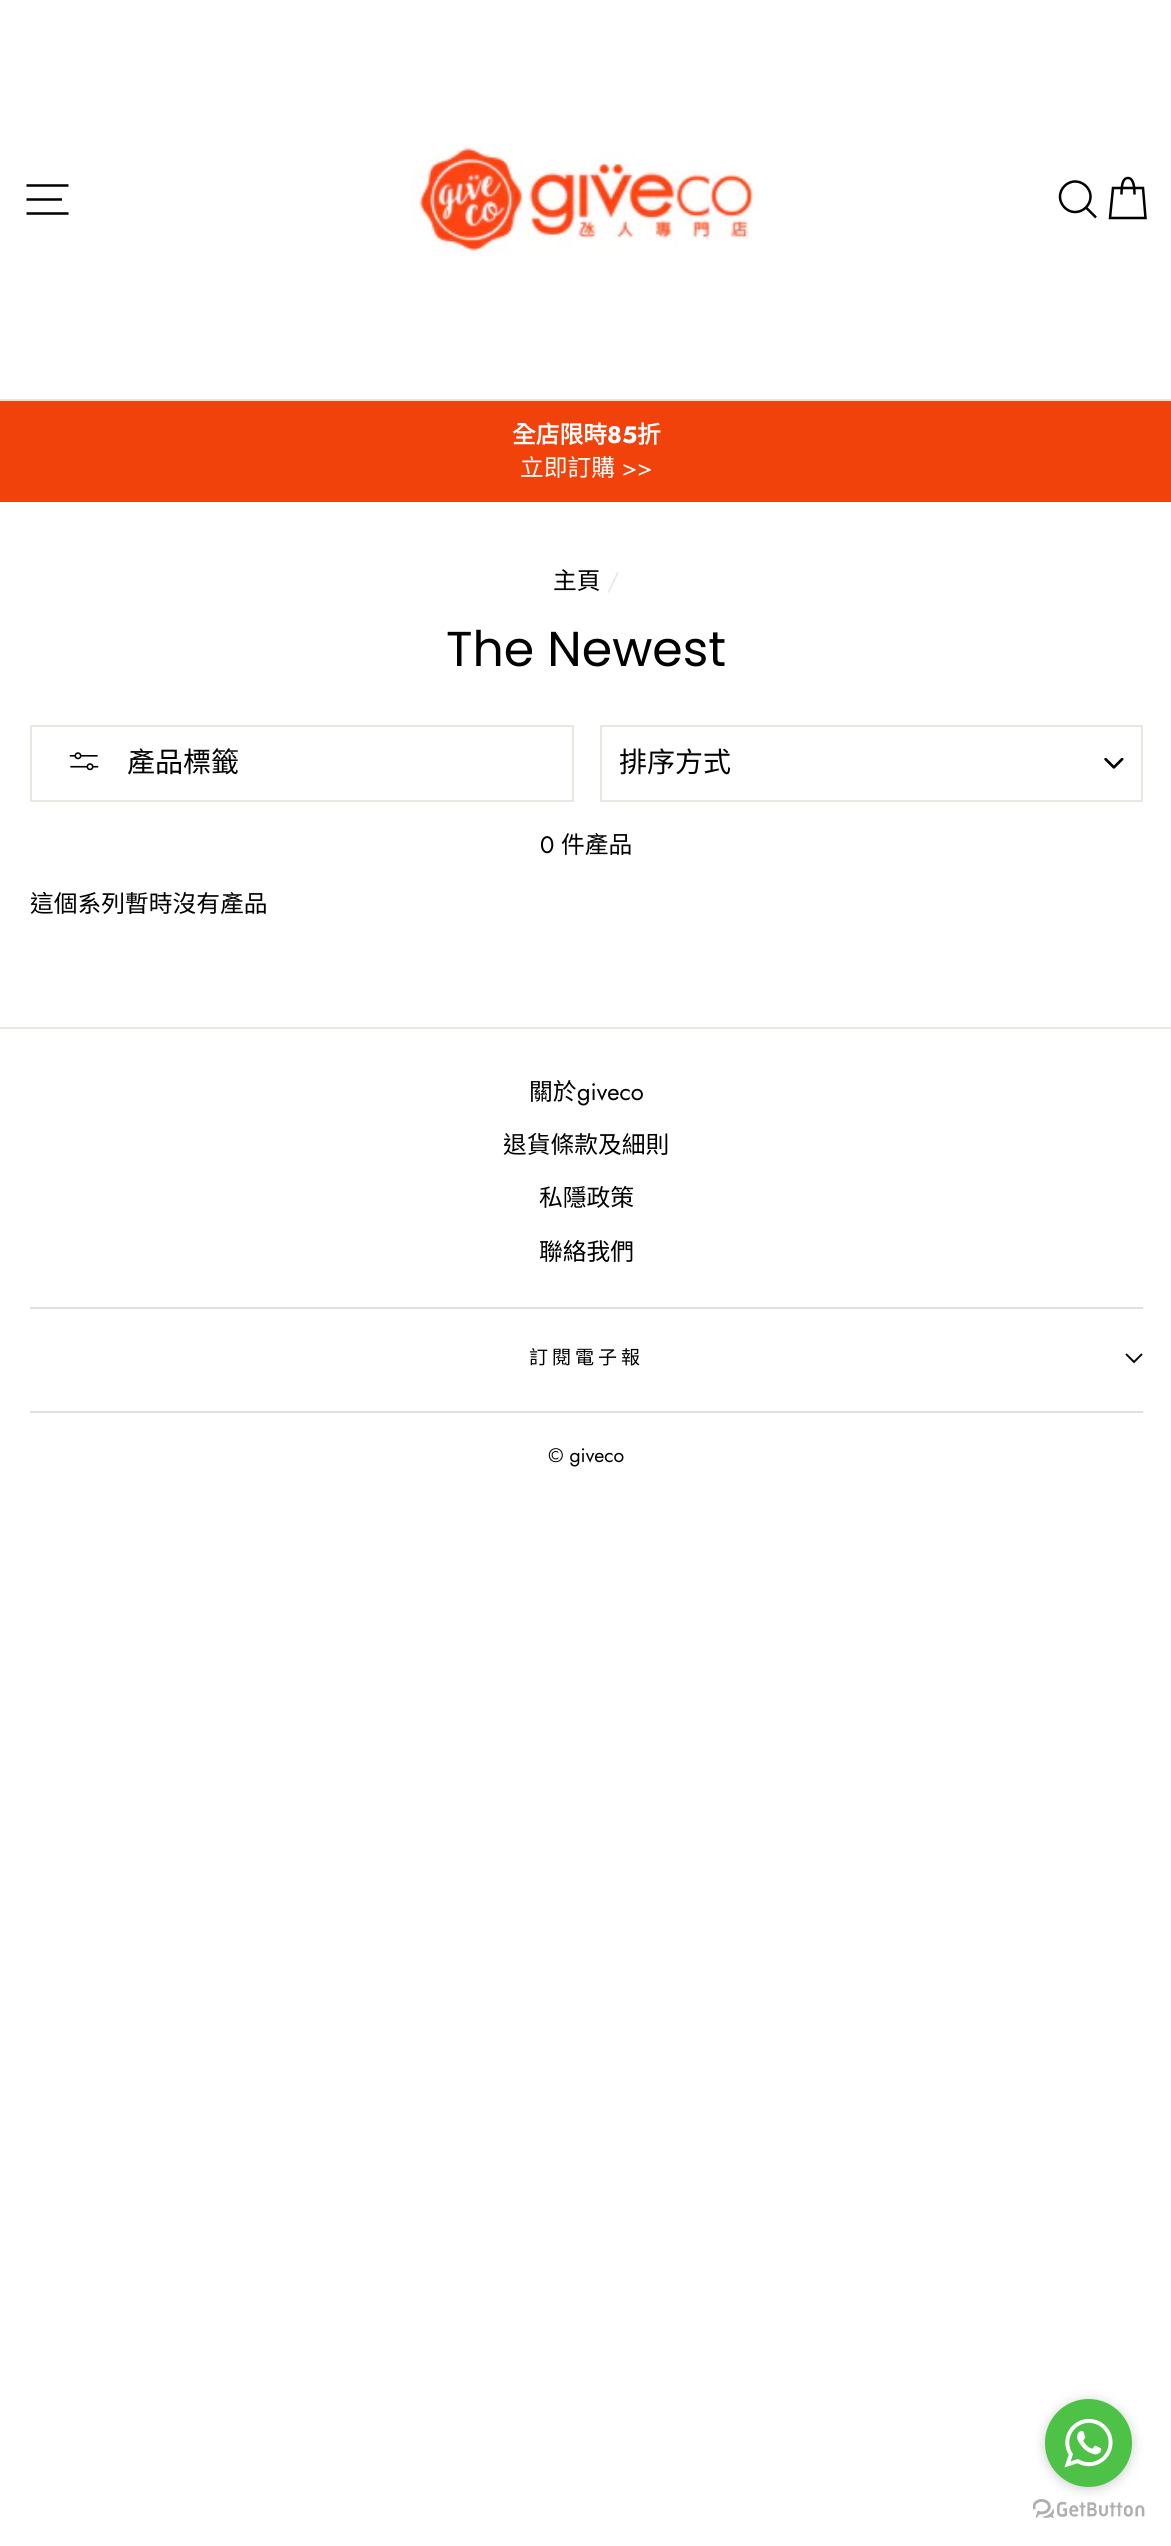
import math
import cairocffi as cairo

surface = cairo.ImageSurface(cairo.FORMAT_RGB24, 1171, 2546)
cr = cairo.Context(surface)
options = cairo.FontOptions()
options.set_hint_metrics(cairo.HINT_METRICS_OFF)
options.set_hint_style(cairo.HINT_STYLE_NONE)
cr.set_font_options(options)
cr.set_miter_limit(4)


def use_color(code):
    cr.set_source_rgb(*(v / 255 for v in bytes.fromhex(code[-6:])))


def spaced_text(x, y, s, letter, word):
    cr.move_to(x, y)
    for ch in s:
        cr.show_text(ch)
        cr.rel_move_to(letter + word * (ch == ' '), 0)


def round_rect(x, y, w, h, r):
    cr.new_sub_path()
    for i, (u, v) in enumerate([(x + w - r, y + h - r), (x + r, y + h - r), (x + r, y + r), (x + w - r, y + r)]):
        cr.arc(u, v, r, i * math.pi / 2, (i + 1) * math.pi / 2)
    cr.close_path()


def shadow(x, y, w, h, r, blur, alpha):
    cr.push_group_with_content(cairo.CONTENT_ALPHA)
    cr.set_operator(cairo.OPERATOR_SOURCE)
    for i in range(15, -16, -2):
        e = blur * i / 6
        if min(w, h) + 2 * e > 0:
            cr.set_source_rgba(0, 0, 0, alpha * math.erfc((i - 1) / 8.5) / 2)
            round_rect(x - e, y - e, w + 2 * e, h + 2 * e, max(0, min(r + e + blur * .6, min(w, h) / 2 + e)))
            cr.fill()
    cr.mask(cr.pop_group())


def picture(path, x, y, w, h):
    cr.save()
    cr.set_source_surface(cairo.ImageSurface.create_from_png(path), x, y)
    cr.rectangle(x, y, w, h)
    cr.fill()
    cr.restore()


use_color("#ffffff")
cr.paint()
use_color("#e8e8e1")
cr.rectangle(0, 399, 1171, 2)
cr.fill()
cr.new_path()
cr.move_to(26.5, 185.5)
cr.line_to(68.5, 185.5)
cr.move_to(26.5, 199.5)
cr.line_to(62, 199.5)
cr.move_to(26.5, 213.5)
cr.line_to(68.5, 213.5)
use_color("#000000")
cr.set_line_width(2.5)
cr.stroke()
picture("img1.png", 411, 145, 347, 109)
cr.new_path()
cr.move_to(1090.5, 196.5)
cr.curve_to(1090.5, 205, 1083.5, 212, 1075, 212)
cr.curve_to(1067, 212, 1060, 205, 1060, 196.5)
cr.curve_to(1060, 188.5, 1067, 181.5, 1075, 181.5)
cr.curve_to(1083.5, 181.5, 1090.5, 188.5, 1090.5, 196.5)
cr.close_path()
cr.move_to(1096, 217.5)
cr.line_to(1086, 207.5)
cr.stroke()
cr.new_path()
cr.move_to(1121.5, 194.5)
cr.curve_to(1121.5, 181.5, 1124, 178, 1128, 178)
cr.curve_to(1131.5, 178, 1134.5, 181.5, 1134.5, 194.5)
cr.move_to(1113, 188)
cr.line_to(1143, 188)
cr.line_to(1145.5, 218)
cr.line_to(1110, 218)
cr.close_path()
cr.stroke()
use_color("#f2420c")
cr.rectangle(0, 401, 1171, 101)
cr.fill()
cr.select_font_face("Noto Sans CJK TC", cairo.FONT_SLANT_NORMAL, cairo.FONT_WEIGHT_BOLD)
cr.set_font_size(23.75)
use_color("#ffffff")
cr.move_to(512, 443)
cr.show_text("全店限時")
cr.select_font_face("Jost", cairo.FONT_SLANT_NORMAL, cairo.FONT_WEIGHT_BOLD)
cr.move_to(607, 443)
cr.show_text("85")
cr.select_font_face("Noto Sans CJK TC", cairo.FONT_SLANT_NORMAL, cairo.FONT_WEIGHT_BOLD)
cr.move_to(637, 443)
cr.show_text("折")
cr.select_font_face("Noto Sans CJK TC")
cr.move_to(520, 476)
cr.show_text("立即訂購")
cr.select_font_face("Jost")
cr.move_to(622, 476)
cr.show_text(">>")
cr.select_font_face("Noto Sans CJK TC")
use_color("#000000")
cr.move_to(553, 589)
cr.show_text("主頁")
cr.select_font_face("Jost")
use_color("#e8e8e1")
cr.move_to(607, 589)
cr.show_text("/")
cr.select_font_face("Poppins")
cr.set_font_size(49)
use_color("#000000")
cr.move_to(446, 666)
cr.show_text("The Newest")
cr.rectangle(31, 726, 542, 75)
use_color("#e8e8e1")
cr.set_line_width(2)
cr.stroke()
picture("img2.png", 69, 752, 30, 19)
cr.select_font_face("Noto Sans CJK TC")
cr.set_font_size(28)
use_color("#000000")
cr.move_to(127, 772)
cr.show_text("產品標籤")
picture("img3.png", 1104, 758, 20, 11)
cr.rectangle(601, 726, 541, 75)
use_color("#e8e8e1")
cr.stroke()
cr.save()
cr.rectangle(620, 744, 472, 40)
cr.clip()
use_color("#000000")
cr.move_to(619, 772)
cr.show_text("排序方式")
cr.restore()
cr.select_font_face("Jost")
cr.set_font_size(23.75)
use_color("#000000")
cr.move_to(540, 853)
cr.show_text("0")
cr.select_font_face("Noto Sans CJK TC")
cr.move_to(561, 853)
cr.show_text("件產品")
cr.move_to(30, 912)
cr.show_text("這個系列暫時沒有產品")
use_color("#e8e8e1")
cr.rectangle(0, 1027, 1171, 2)
cr.fill()
use_color("#000000")
cr.move_to(529, 1100)
cr.show_text("關於")
cr.select_font_face("Jost")
cr.move_to(577, 1100)
cr.show_text("giveco")
cr.select_font_face("Noto Sans CJK TC")
cr.move_to(503, 1153)
cr.show_text("退貨條款及細則")
cr.move_to(539, 1206)
cr.show_text("私隱政策")
cr.move_to(539, 1260)
cr.show_text("聯絡我們")
use_color("#e0e0e0")
cr.rectangle(30, 1307, 1113, 2)
cr.fill()
cr.set_font_size(19)
use_color("#000000")
spaced_text(529, 1364, "訂閱電子報", 4, 0)
cr.new_path()
cr.move_to(1126, 1354)
cr.line_to(1134, 1362)
cr.line_to(1142, 1354)
cr.set_line_width(1.9)
cr.stroke()
use_color("#e0e0e0")
cr.rectangle(30, 1411, 1113, 2)
cr.fill()
cr.select_font_face("Jost")
cr.set_font_size(19.5)
use_color("#000000")
cr.move_to(548, 1462)
cr.show_text("© giveco")
picture("img5.png", 1033, 2499, 112, 19)
use_color("#888888")
shadow(1045, 2401, 87, 88, 43.5, 6, 0.4)
use_color("#4dc247")
round_rect(1045, 2399, 87, 88, 43.5)
cr.fill()
picture("img4.png", 1064, 2418, 49, 50)
surface.write_to_png("result.png")
